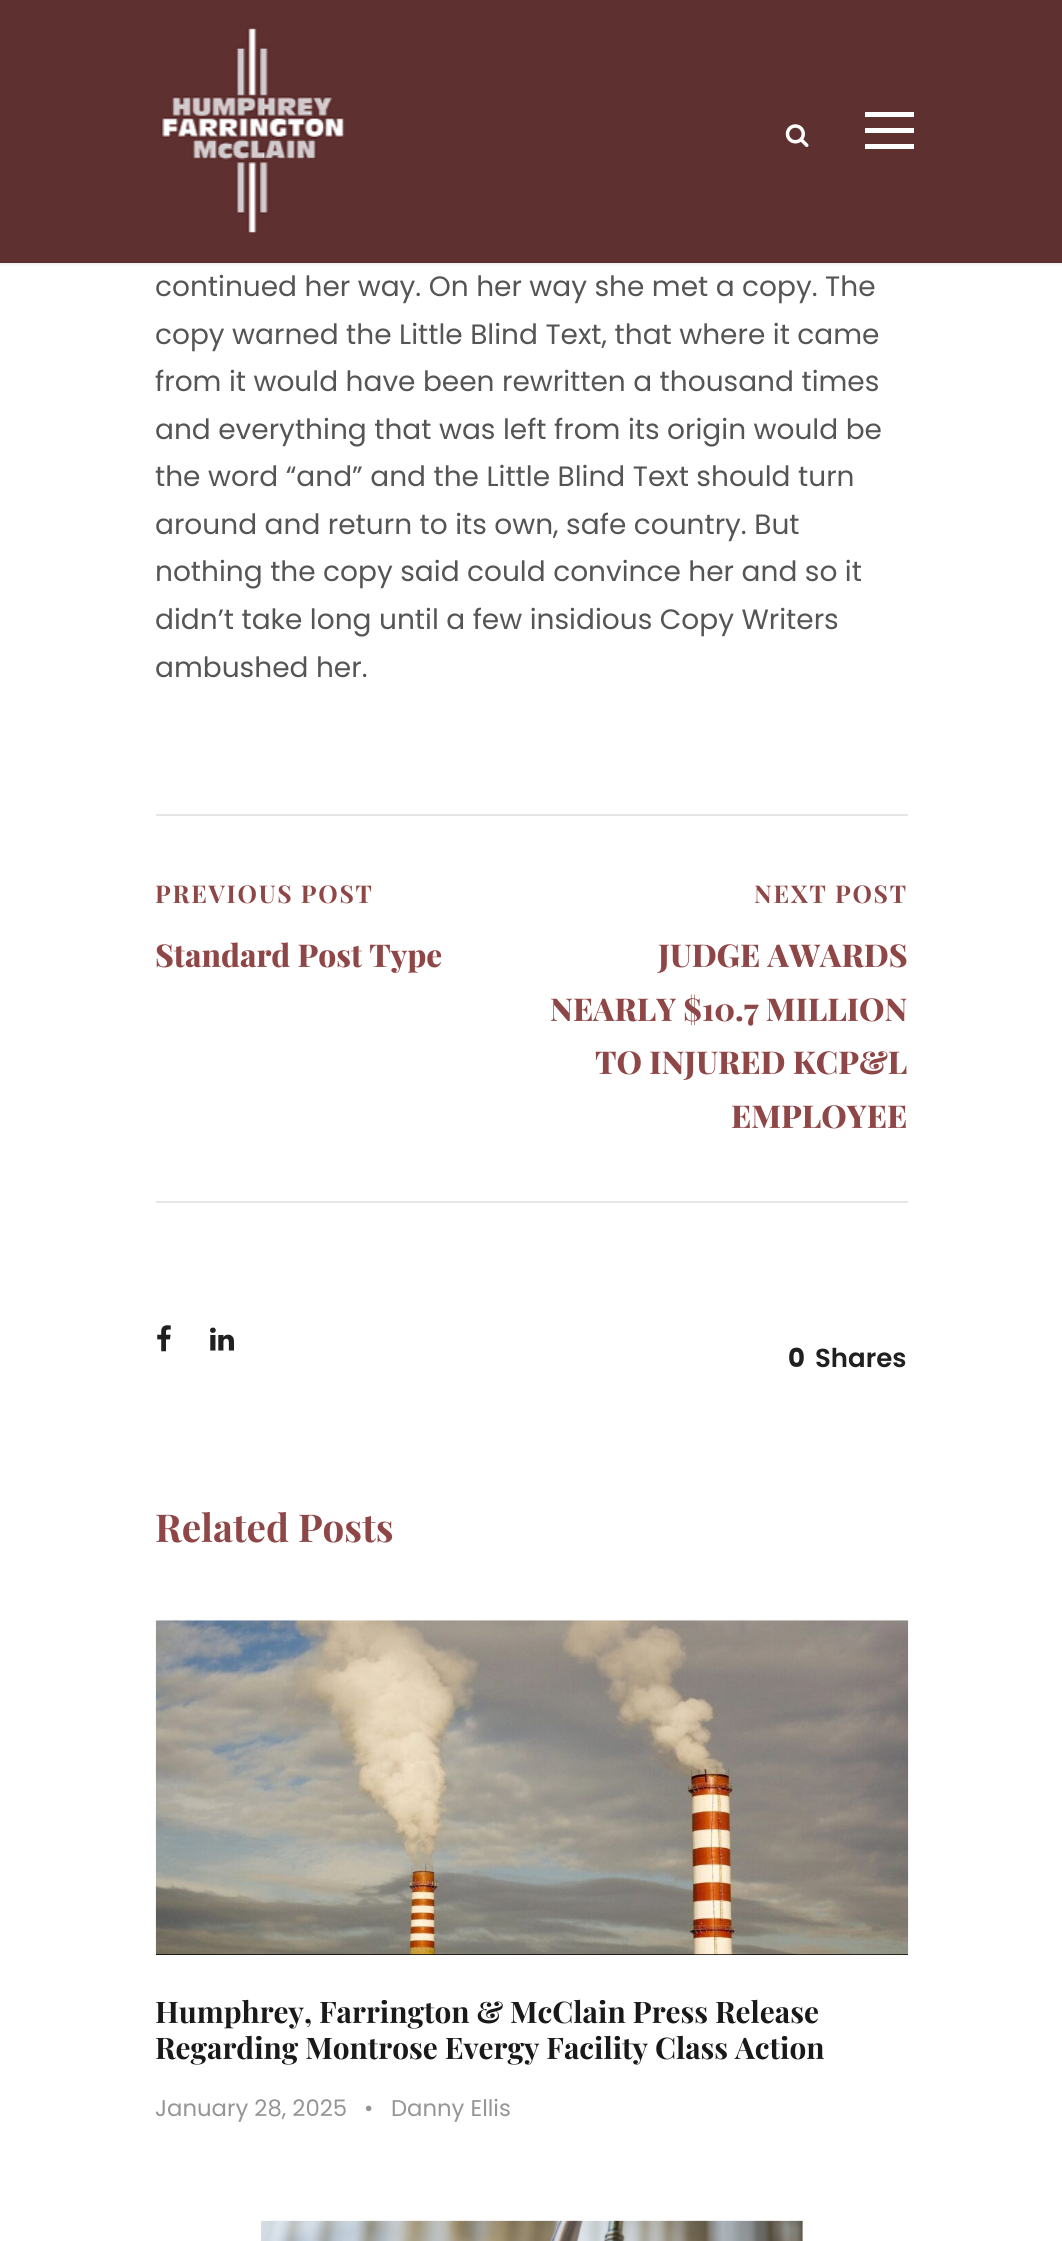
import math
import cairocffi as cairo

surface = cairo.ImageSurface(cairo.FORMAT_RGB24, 1062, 2241)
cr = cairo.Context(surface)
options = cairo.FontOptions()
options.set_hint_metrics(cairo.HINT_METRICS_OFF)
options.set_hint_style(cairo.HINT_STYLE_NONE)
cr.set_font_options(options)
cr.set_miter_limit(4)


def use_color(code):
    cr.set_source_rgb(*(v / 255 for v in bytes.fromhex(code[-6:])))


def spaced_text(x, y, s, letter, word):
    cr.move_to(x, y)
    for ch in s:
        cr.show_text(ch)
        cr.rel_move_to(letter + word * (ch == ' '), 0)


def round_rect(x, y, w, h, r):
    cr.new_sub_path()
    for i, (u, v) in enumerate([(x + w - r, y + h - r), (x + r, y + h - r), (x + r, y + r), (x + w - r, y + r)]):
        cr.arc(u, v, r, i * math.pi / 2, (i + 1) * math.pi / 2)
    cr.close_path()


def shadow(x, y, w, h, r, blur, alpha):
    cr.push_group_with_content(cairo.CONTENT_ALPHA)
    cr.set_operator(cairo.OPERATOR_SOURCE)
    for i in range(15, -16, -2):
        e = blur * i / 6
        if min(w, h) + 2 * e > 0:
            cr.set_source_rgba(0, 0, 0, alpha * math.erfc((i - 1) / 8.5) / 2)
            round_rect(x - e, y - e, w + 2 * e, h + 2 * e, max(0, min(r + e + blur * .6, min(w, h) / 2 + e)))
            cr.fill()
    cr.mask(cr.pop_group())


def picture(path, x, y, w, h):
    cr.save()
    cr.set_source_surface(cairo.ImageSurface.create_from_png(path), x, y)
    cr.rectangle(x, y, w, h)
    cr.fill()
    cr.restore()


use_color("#ffffff")
cr.paint()
use_color("#000000")
shadow(0, 2, 1062, 262, 0, 2, 0.1)
use_color("#5e3030")
cr.rectangle(0, 0, 1062, 263)
cr.fill()
picture("img1.png", 160, 26, 185, 208)
picture("img2.png", 785, 124, 24, 23)
use_color("#ffffff")
cr.rectangle(865, 112, 49, 5)
cr.fill()
cr.rectangle(865, 128, 49, 5)
cr.fill()
cr.rectangle(865, 144, 49, 5)
cr.fill()
cr.select_font_face("Poppins")
cr.set_font_size(28)
use_color("#555555")
cr.move_to(155, 296)
cr.show_text("continued her way. On her way she met a copy. The")
cr.move_to(155, 344)
cr.show_text("copy warned the Little Blind Text, that where it came")
cr.move_to(155, 391)
cr.show_text("from it would have been rewritten a thousand times")
cr.move_to(155, 439)
cr.show_text("and everything that was left from its origin would be")
cr.move_to(155, 486)
cr.show_text("the word “and” and the Little Blind Text should turn")
cr.move_to(155, 534)
cr.show_text("around and return to its own, safe country. But")
cr.move_to(155, 581)
cr.show_text("nothing the copy said could convince her and so it")
cr.move_to(155, 629)
cr.show_text("didn’t take long until a few insidious Copy Writers")
cr.move_to(155, 677)
cr.show_text("ambushed her.")
use_color("#e6e6e6")
cr.rectangle(156, 814, 752, 2)
cr.fill()
cr.rectangle(156, 1201, 752, 2)
cr.fill()
cr.select_font_face("Playfair Display", cairo.FONT_SLANT_NORMAL, cairo.FONT_WEIGHT_BOLD)
cr.set_font_size(24.5)
use_color("#8f4646")
spaced_text(155, 903, "PREVIOUS POST", 1.75, 0)
cr.select_font_face("Playfair Display ExtraBold")
cr.set_font_size(31.5)
cr.move_to(155, 967)
cr.show_text("Standard Post Type")
cr.select_font_face("Playfair Display", cairo.FONT_SLANT_NORMAL, cairo.FONT_WEIGHT_BOLD)
cr.set_font_size(24.5)
spaced_text(754, 903, "NEXT POST", 1.75, 0)
cr.select_font_face("Playfair Display ExtraBold")
cr.set_font_size(31.5)
cr.move_to(658, 967)
cr.show_text("JUDGE AWARDS")
cr.move_to(550, 1021)
cr.show_text("NEARLY $10.7 MILLION")
cr.move_to(595, 1074)
cr.show_text("TO INJURED KCP&L")
cr.move_to(731, 1128)
cr.show_text("EMPLOYEE")
picture("img3.png", 157, 1325, 14, 27)
picture("img4.png", 210, 1327, 24, 24)
cr.select_font_face("Poppins", cairo.FONT_SLANT_NORMAL, cairo.FONT_WEIGHT_BOLD)
cr.set_font_size(26)
use_color("#202020")
cr.move_to(788, 1367)
cr.show_text("0")
cr.select_font_face("Poppins SemiBold")
cr.move_to(815, 1367)
cr.show_text("Shares")
cr.select_font_face("Playfair Display", cairo.FONT_SLANT_NORMAL, cairo.FONT_WEIGHT_BOLD)
cr.set_font_size(38.5)
use_color("#8f4646")
cr.move_to(155, 1542)
cr.show_text("Related Posts")
use_color("#000000")
cr.rectangle(156, 1954, 752, 1)
cr.fill()
picture("img5.png", 155, 1620, 754, 335)
cr.set_font_size(29.75)
use_color("#191919")
cr.move_to(155, 2023)
cr.show_text("Humphrey, Farrington & McClain Press Release")
cr.move_to(155, 2059)
cr.show_text("Regarding Montrose Evergy Facility Class Action")
cr.select_font_face("Poppins")
cr.set_font_size(22.75)
use_color("#959595")
cr.move_to(155, 2116)
cr.show_text("January 28, 2025")
cr.move_to(364, 2116)
cr.show_text("•")
cr.move_to(391, 2116)
cr.show_text("Danny Ellis")
picture("img6.png", 156, 2217, 752, 24)
surface.write_to_png("result.png")
